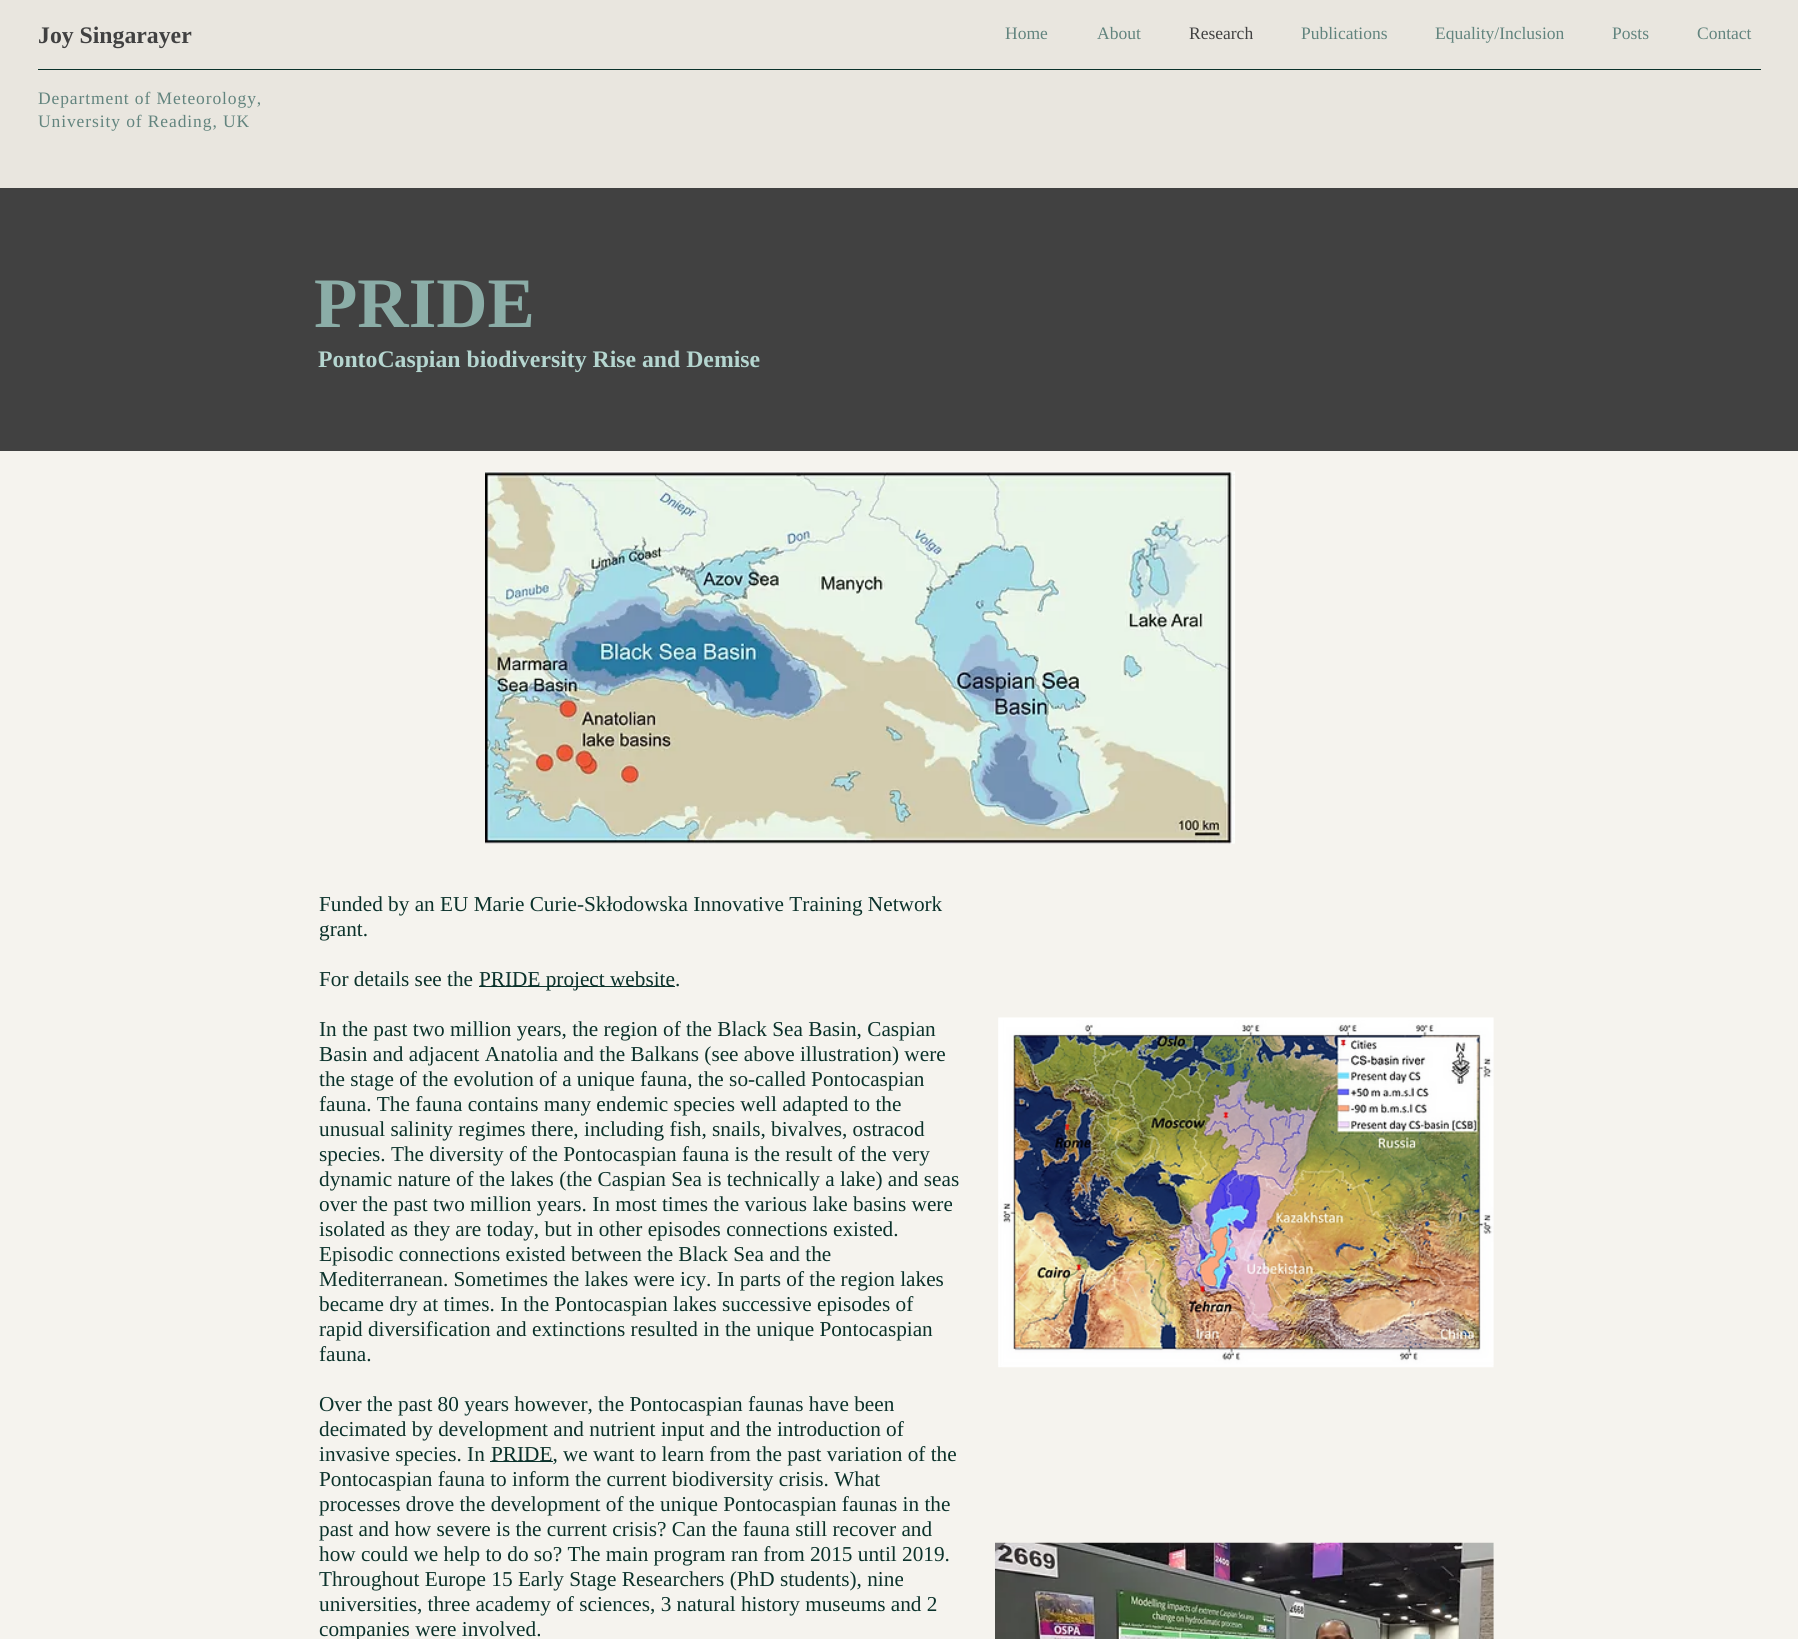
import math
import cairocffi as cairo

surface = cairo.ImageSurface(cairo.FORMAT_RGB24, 1798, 1639)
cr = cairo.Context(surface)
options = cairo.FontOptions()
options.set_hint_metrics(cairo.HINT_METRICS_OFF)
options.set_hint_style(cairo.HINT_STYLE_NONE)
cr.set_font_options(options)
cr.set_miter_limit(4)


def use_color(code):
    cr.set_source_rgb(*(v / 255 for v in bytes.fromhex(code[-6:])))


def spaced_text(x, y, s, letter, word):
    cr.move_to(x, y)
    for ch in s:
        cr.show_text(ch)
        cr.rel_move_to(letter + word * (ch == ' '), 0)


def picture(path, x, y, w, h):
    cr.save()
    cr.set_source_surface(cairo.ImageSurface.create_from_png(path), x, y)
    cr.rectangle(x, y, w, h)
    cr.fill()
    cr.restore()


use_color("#f5f3ee")
cr.paint()
use_color("#e9e6df")
cr.rectangle(0, 0, 1798, 188)
cr.fill()
cr.select_font_face("Liberation Serif", cairo.FONT_SLANT_NORMAL, cairo.FONT_WEIGHT_BOLD)
cr.set_font_size(23.75)
use_color("#414141")
cr.move_to(38, 43)
cr.show_text("Joy Singarayer")
cr.select_font_face("Liberation Serif")
cr.set_font_size(17.5)
use_color("#62847e")
spaced_text(38, 104, "Department of Meteorology,", 0.9, 0)
spaced_text(38, 127, "University of Reading, UK", 0.9, 0)
cr.move_to(1005, 39)
cr.show_text("Home")
cr.move_to(1097, 39)
cr.show_text("About")
use_color("#414141")
cr.move_to(1189, 39)
cr.show_text("Research")
use_color("#62847e")
cr.move_to(1301, 39)
cr.show_text("Publications")
cr.move_to(1435, 39)
cr.show_text("Equality/Inclusion")
cr.move_to(1612, 39)
cr.show_text("Posts")
cr.move_to(1697, 39)
cr.show_text("Contact")
use_color("#0b322b")
cr.rectangle(38, 69, 1723, 1)
cr.fill()
use_color("#414141")
cr.rectangle(0, 188, 1798, 263)
cr.fill()
cr.select_font_face("Liberation Serif", cairo.FONT_SLANT_NORMAL, cairo.FONT_WEIGHT_BOLD)
cr.set_font_size(71)
use_color("#8bada7")
cr.move_to(314, 327)
cr.show_text("PRIDE")
cr.set_font_size(23.75)
use_color("#b5d6d0")
cr.move_to(318, 367)
cr.show_text("PontoCaspian biodiversity Rise and Demise")
picture("img1.png", 485, 471, 750, 373)
cr.select_font_face("Liberation Serif")
cr.set_font_size(21.25)
use_color("#0b322b")
cr.move_to(319, 911)
cr.show_text("Funded by an EU Marie Curie-Skłodowska Innovative Training Network")
cr.move_to(319, 936)
cr.show_text("grant.")
cr.move_to(319, 986)
cr.show_text("For details see the")
cr.rectangle(479, 986, 196, 1)
cr.fill()
cr.move_to(479, 986)
cr.show_text("PRIDE project website.")
cr.move_to(319, 1036)
cr.show_text("In the past two million years, the region of the Black Sea Basin, Caspian")
cr.move_to(319, 1061)
cr.show_text("Basin and adjacent Anatolia and the Balkans (see above illustration) were")
cr.move_to(319, 1086)
cr.show_text("the stage of the evolution of a unique fauna, the so-called Pontocaspian")
cr.move_to(319, 1111)
cr.show_text("fauna. The fauna contains many endemic species well adapted to the")
cr.move_to(319, 1136)
cr.show_text("unusual salinity regimes there, including fish, snails, bivalves, ostracod")
cr.move_to(319, 1161)
cr.show_text("species. The diversity of the Pontocaspian fauna is the result of the very")
cr.move_to(319, 1186)
cr.show_text("dynamic nature of the lakes (the Caspian Sea is technically a lake) and seas")
cr.move_to(319, 1211)
cr.show_text("over the past two million years. In most times the various lake basins were")
cr.move_to(319, 1236)
cr.show_text("isolated as they are today, but in other episodes connections existed.")
cr.move_to(319, 1261)
cr.show_text("Episodic connections existed between the Black Sea and the")
cr.move_to(319, 1286)
cr.show_text("Mediterranean. Sometimes the lakes were icy. In parts of the region lakes")
cr.move_to(319, 1311)
cr.show_text("became dry at times. In the Pontocaspian lakes successive episodes of")
cr.move_to(319, 1336)
cr.show_text("rapid diversification and extinctions resulted in the unique Pontocaspian")
cr.move_to(319, 1361)
cr.show_text("fauna.")
cr.move_to(319, 1411)
cr.show_text("Over the past 80 years however, the Pontocaspian faunas have been")
cr.move_to(319, 1436)
cr.show_text("decimated by development and nutrient input and the introduction of")
cr.move_to(319, 1461)
cr.show_text("invasive species. In")
cr.rectangle(490, 1461, 63, 1)
cr.fill()
cr.move_to(491, 1461)
cr.show_text("PRIDE, we want to learn from the past variation of the")
cr.move_to(319, 1486)
cr.show_text("Pontocaspian fauna to inform the current biodiversity crisis. What")
cr.move_to(319, 1511)
cr.show_text("processes drove the development of the unique Pontocaspian faunas in the")
cr.move_to(319, 1536)
cr.show_text("past and how severe is the current crisis? Can the fauna still recover and")
cr.move_to(319, 1561)
cr.show_text("how could we help to do so? The main program ran from 2015 until 2019.")
cr.move_to(319, 1586)
cr.show_text("Throughout Europe 15 Early Stage Researchers (PhD students), nine")
cr.move_to(319, 1611)
cr.show_text("universities, three academy of sciences, 3 natural history museums and 2")
cr.move_to(319, 1636)
cr.show_text("companies were involved.")
picture("img2.png", 998, 1017, 496, 351)
picture("img3.png", 995, 1542, 499, 97)
surface.write_to_png("result.png")
